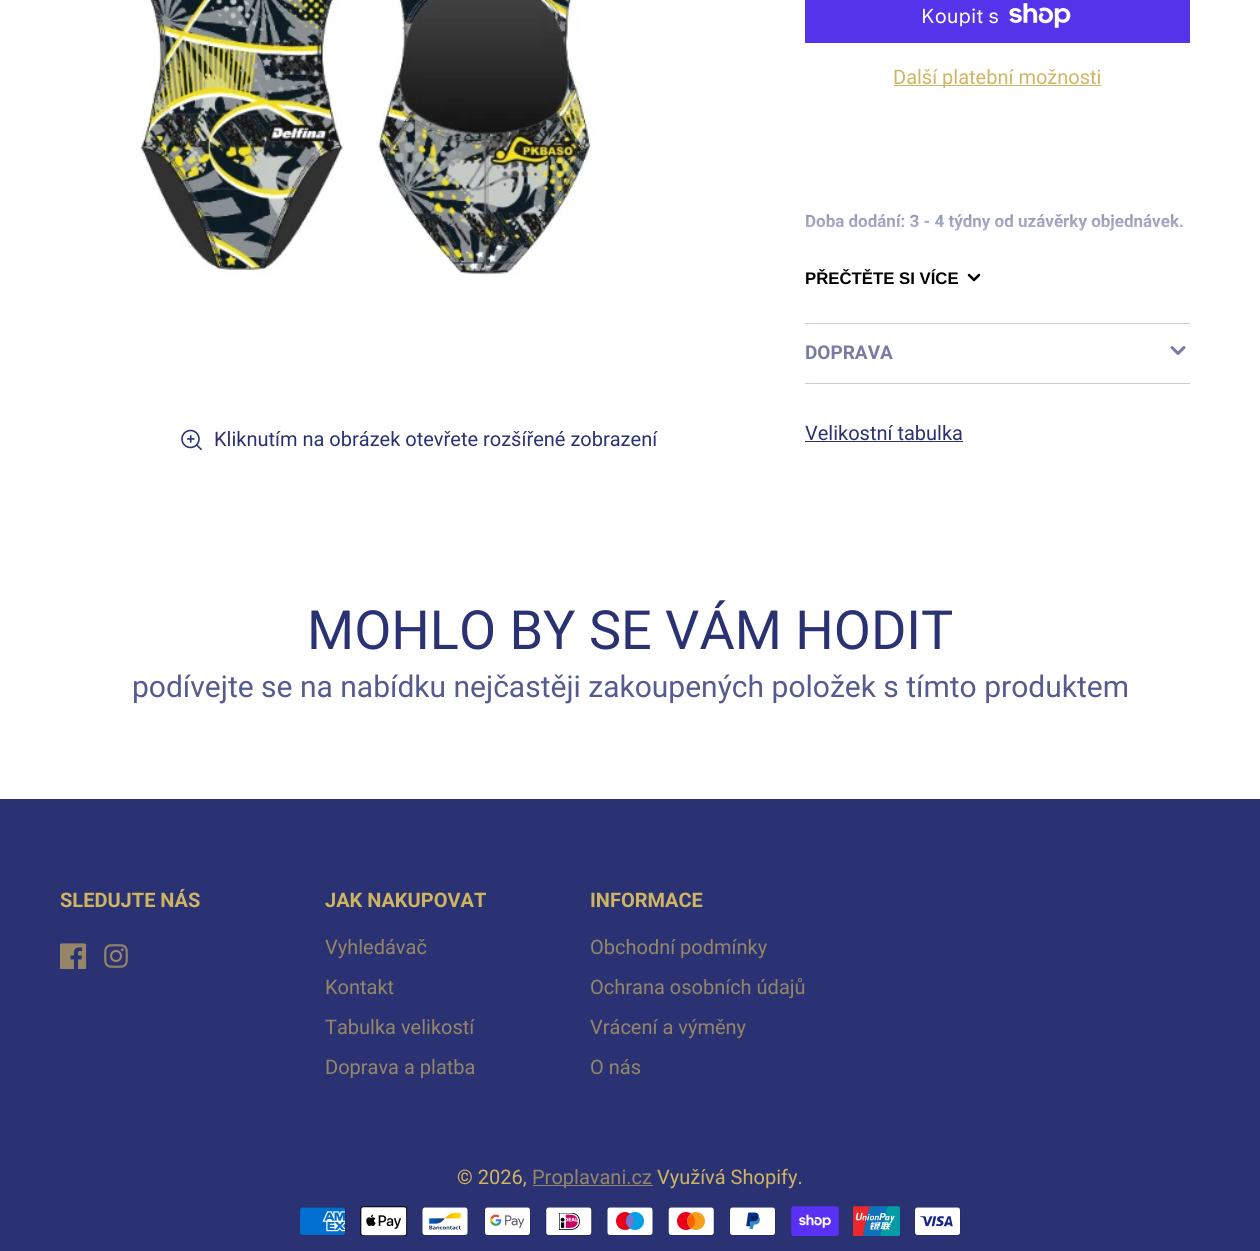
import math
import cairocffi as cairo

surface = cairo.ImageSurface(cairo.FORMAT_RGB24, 1260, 1251)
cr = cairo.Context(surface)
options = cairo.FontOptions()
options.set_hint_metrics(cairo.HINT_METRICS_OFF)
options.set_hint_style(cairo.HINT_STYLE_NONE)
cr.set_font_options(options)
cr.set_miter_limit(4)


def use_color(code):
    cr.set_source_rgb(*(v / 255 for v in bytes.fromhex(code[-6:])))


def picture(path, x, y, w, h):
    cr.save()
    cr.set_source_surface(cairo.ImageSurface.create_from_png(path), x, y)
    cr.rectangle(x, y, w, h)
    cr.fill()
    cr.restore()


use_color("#ffffff")
cr.paint()
picture("img1.png", 140, 0, 453, 277)
picture("img2.png", 181, 429, 21, 22)
cr.select_font_face("Roboto")
cr.set_font_size(20)
use_color("#2a3273")
cr.move_to(214, 446)
cr.show_text("Kliknutím na obrázek otevřete rozšířené zobrazení")
use_color("#5433eb")
cr.rectangle(805, 0, 385, 43)
cr.fill()
cr.select_font_face("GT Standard")
use_color("#ffffff")
cr.move_to(921, 23)
cr.show_text("Koupit s")
picture("img3.png", 1009, 3, 62, 25)
use_color("#d0b561")
cr.rectangle(894, 85, 207, 1)
cr.fill()
cr.select_font_face("Roboto")
cr.move_to(893, 84)
cr.show_text("Další platební možnosti")
cr.select_font_face("Roboto", cairo.FONT_SLANT_NORMAL, cairo.FONT_WEIGHT_BOLD)
cr.set_font_size(17)
use_color("#2a3273")
cr.move_to(805, 227)
cr.show_text("Doba dodání: 3 - 4 týdny od uzávěrky objednávek.")
gradient = cairo.LinearGradient(998, 288, 998, 163)
gradient.add_color_stop_rgba(0.15, 1, 1, 1, 1)
gradient.add_color_stop_rgba(1, 1, 1, 1, 0)
cr.set_source(gradient)
cr.rectangle(806, 214, 377, 17)
cr.fill()
cr.select_font_face("Liberation Sans", cairo.FONT_SLANT_NORMAL, cairo.FONT_WEIGHT_BOLD)
cr.set_font_size(16.75)
use_color("#000000")
cr.move_to(805, 284)
cr.show_text("PŘEČTĚTE SI VÍCE")
cr.new_path()
cr.move_to(969, 275)
cr.line_to(974, 280)
cr.line_to(979, 275)
cr.set_line_width(2.5)
cr.set_line_cap(cairo.LINE_CAP_ROUND)
cr.set_line_join(cairo.LINE_JOIN_ROUND)
cr.stroke()
use_color("#caccdc")
cr.rectangle(805, 323, 385, 1)
cr.fill()
cr.select_font_face("Roboto", cairo.FONT_SLANT_NORMAL, cairo.FONT_WEIGHT_BOLD)
cr.set_font_size(19)
use_color("#777ca5")
cr.move_to(805, 359)
cr.show_text("DOPRAVA")
cr.new_path()
cr.move_to(1172, 347.5)
cr.line_to(1178, 353.5)
cr.line_to(1184, 347.5)
cr.set_line_width(3)
cr.stroke()
use_color("#caccdc")
cr.rectangle(805, 383, 385, 1)
cr.fill()
cr.select_font_face("Roboto")
cr.set_font_size(20)
use_color("#2a3273")
cr.move_to(805, 440)
cr.show_text("Velikostní tabulka")
cr.rectangle(805, 441, 158, 1)
cr.fill()
cr.set_font_size(54)
cr.move_to(307, 649)
cr.show_text("MOHLO BY SE VÁM HODIT")
cr.set_font_size(30)
use_color("#555b8f")
cr.move_to(132, 697)
cr.show_text("podívejte se na nabídku nejčastěji zakoupených položek s tímto produktem")
use_color("#2a3273")
cr.rectangle(0, 799, 1260, 452)
cr.fill()
cr.select_font_face("Roboto", cairo.FONT_SLANT_NORMAL, cairo.FONT_WEIGHT_BOLD)
cr.set_font_size(20)
use_color("#d0b561")
cr.move_to(60, 907)
cr.show_text("SLEDUJTE NÁS")
picture("img4.png", 60, 943, 27, 26)
picture("img5.png", 104, 944, 24, 24)
cr.move_to(325, 907)
cr.show_text("JAK NAKUPOVAT")
cr.select_font_face("Roboto")
use_color("#948667")
cr.move_to(325, 954)
cr.show_text("Vyhledávač")
cr.move_to(325, 994)
cr.show_text("Kontakt")
cr.move_to(325, 1034)
cr.show_text("Tabulka velikostí")
cr.move_to(325, 1074)
cr.show_text("Doprava a platba")
cr.select_font_face("Roboto", cairo.FONT_SLANT_NORMAL, cairo.FONT_WEIGHT_BOLD)
use_color("#d0b561")
cr.move_to(590, 907)
cr.show_text("INFORMACE")
cr.select_font_face("Roboto")
use_color("#948667")
cr.move_to(590, 954)
cr.show_text("Obchodní podmínky")
cr.move_to(590, 994)
cr.show_text("Ochrana osobních údajů")
cr.move_to(590, 1034)
cr.show_text("Vrácení a výměny")
cr.move_to(590, 1074)
cr.show_text("O nás")
use_color("#d0b561")
cr.move_to(457, 1184)
cr.show_text("© 2026,")
use_color("#948667")
cr.rectangle(533, 1185, 120, 1)
cr.fill()
cr.move_to(532, 1184)
cr.show_text("Proplavani.cz")
use_color("#d0b561")
cr.move_to(657, 1184)
cr.show_text("Využívá Shopify.")
picture("img6.png", 299, 1206, 47, 30)
picture("img7.png", 360, 1206, 48, 30)
picture("img8.png", 421, 1206, 48, 30)
picture("img9.png", 484, 1206, 47, 30)
picture("img10.png", 545, 1206, 48, 30)
picture("img11.png", 606, 1206, 48, 30)
picture("img12.png", 668, 1206, 47, 30)
picture("img13.png", 729, 1206, 47, 30)
picture("img14.png", 791, 1206, 48, 30)
picture("img15.png", 853, 1206, 47, 30)
picture("img16.png", 914, 1206, 47, 30)
surface.write_to_png("result.png")
